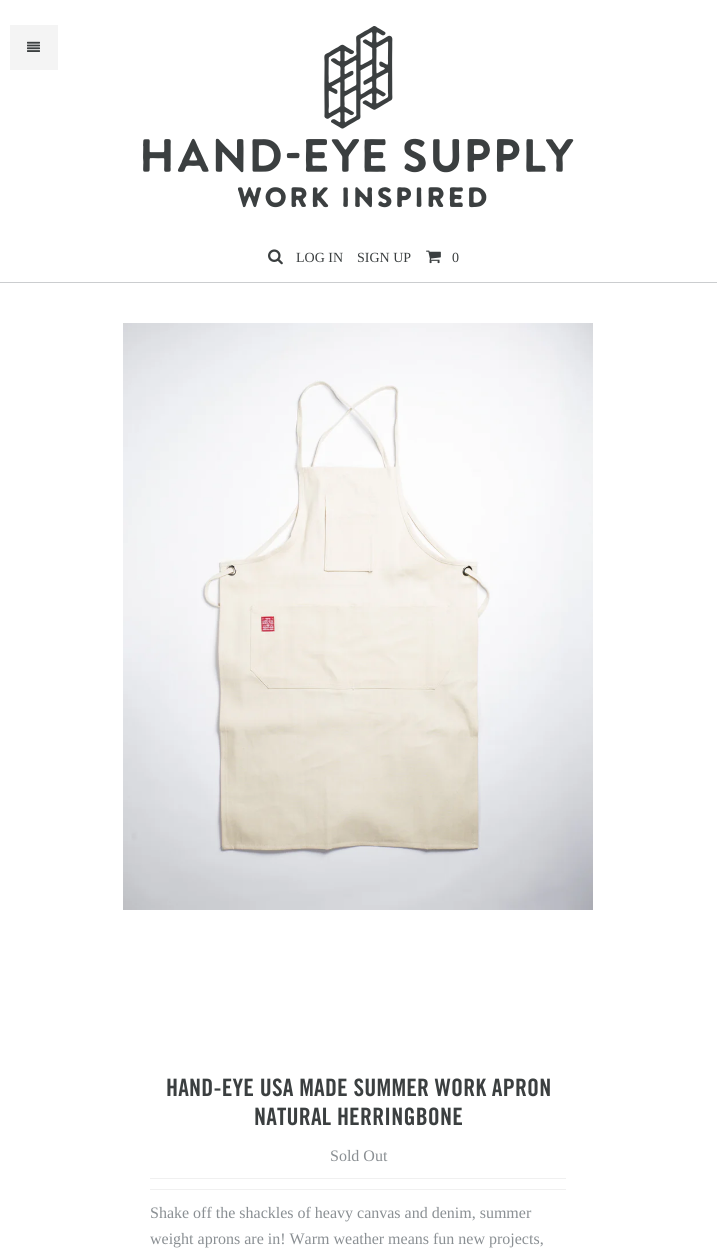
import math
import cairocffi as cairo

surface = cairo.ImageSurface(cairo.FORMAT_RGB24, 717, 1258)
cr = cairo.Context(surface)
options = cairo.FontOptions()
options.set_hint_metrics(cairo.HINT_METRICS_OFF)
options.set_hint_style(cairo.HINT_STYLE_NONE)
cr.set_font_options(options)
cr.set_miter_limit(4)


def use_color(code):
    cr.set_source_rgb(*(v / 255 for v in bytes.fromhex(code[-6:])))


def spaced_text(x, y, s, letter, word):
    cr.move_to(x, y)
    for ch in s:
        cr.show_text(ch)
        cr.rel_move_to(letter + word * (ch == ' '), 0)


def picture(path, x, y, w, h):
    cr.save()
    cr.set_source_surface(cairo.ImageSurface.create_from_png(path), x, y)
    cr.rectangle(x, y, w, h)
    cr.fill()
    cr.restore()


use_color("#ffffff")
cr.paint()
use_color("#f4f4f4")
cr.rectangle(10, 25, 48, 45)
cr.fill()
picture("img1.png", 27, 41, 13, 11)
cr.select_font_face("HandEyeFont")
cr.set_font_size(192)
use_color("#3b3f40")
cr.move_to(138, 200)
cr.show_text("H")
picture("img2.png", 268, 249, 15, 16)
cr.select_font_face("Liberation Serif")
cr.set_font_size(14)
cr.move_to(296, 262)
cr.show_text("LOG IN")
cr.move_to(357, 262)
cr.show_text("SIGN UP")
picture("img3.png", 426, 250, 15, 14)
cr.move_to(452, 262)
cr.show_text("0")
use_color("#cbcdcf")
cr.rectangle(0, 282, 717, 1)
cr.fill()
picture("img4.png", 123, 323, 470, 587)
cr.select_font_face("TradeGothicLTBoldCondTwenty", cairo.FONT_SLANT_NORMAL, cairo.FONT_WEIGHT_BOLD)
cr.set_font_size(24)
use_color("#3b3f40")
spaced_text(166, 1096, "HAND-EYE USA MADE SUMMER WORK APRON", 0.2, 0)
spaced_text(254, 1125, "NATURAL HERRINGBONE", 0.2, 0)
cr.select_font_face("Liberation Serif")
cr.set_font_size(16)
use_color("#8a8f93")
cr.move_to(330, 1161)
cr.show_text("Sold Out")
use_color("#f0f0f0")
cr.rectangle(150, 1178, 416, 1)
cr.fill()
cr.rectangle(150, 1189, 416, 1)
cr.fill()
use_color("#8a8f93")
cr.move_to(150, 1218)
cr.show_text("Shake off the shackles of heavy canvas and denim, summer")
cr.move_to(150, 1244)
cr.show_text("weight aprons are in! Warm weather means fun new projects,")
surface.write_to_png("result.png")
